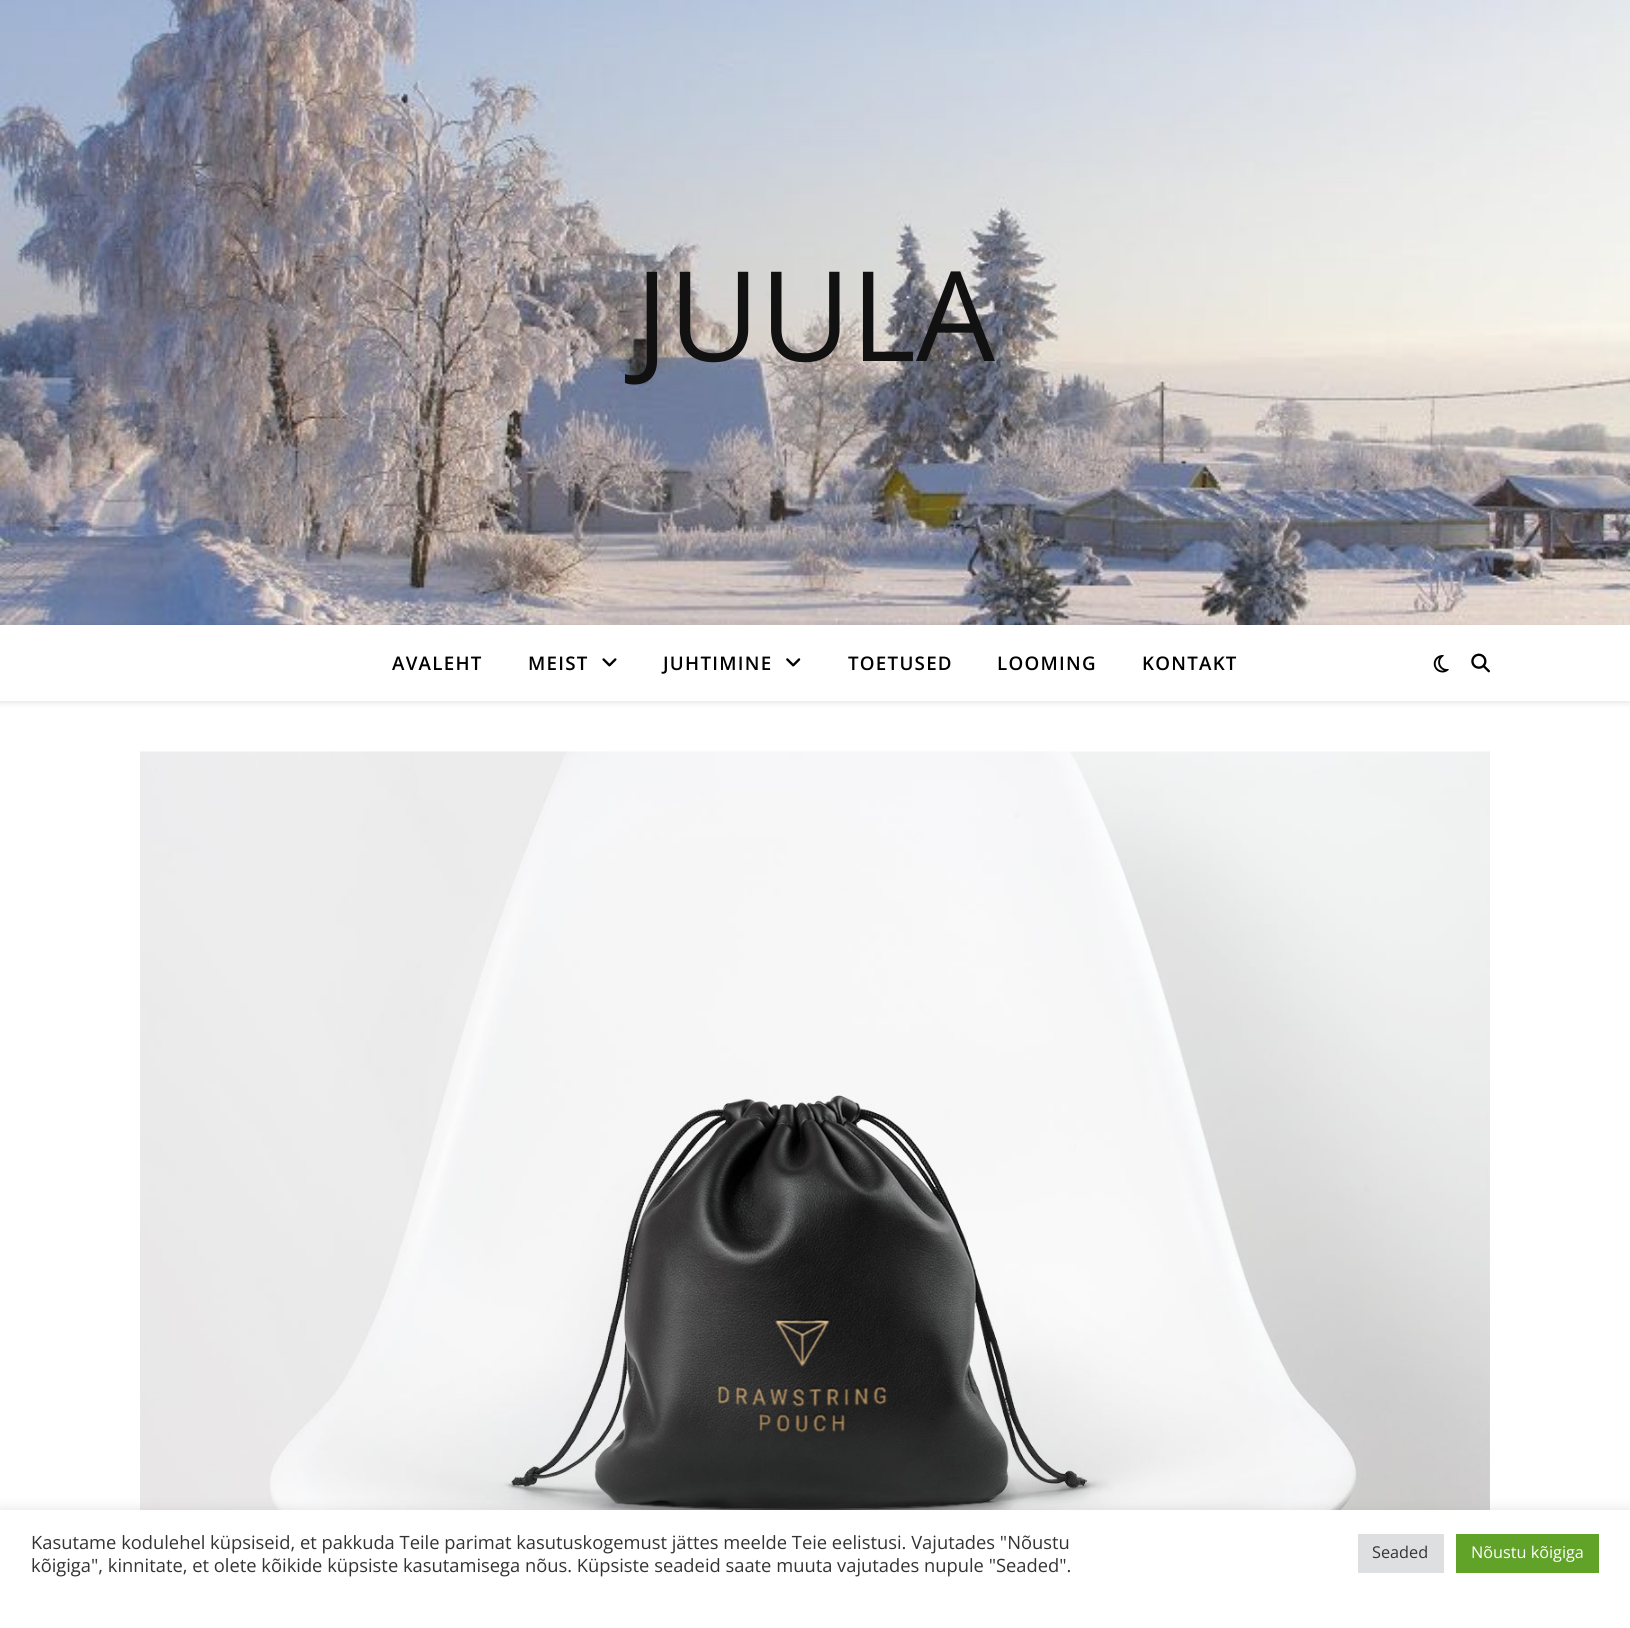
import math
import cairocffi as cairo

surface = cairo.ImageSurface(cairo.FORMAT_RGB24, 1630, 1628)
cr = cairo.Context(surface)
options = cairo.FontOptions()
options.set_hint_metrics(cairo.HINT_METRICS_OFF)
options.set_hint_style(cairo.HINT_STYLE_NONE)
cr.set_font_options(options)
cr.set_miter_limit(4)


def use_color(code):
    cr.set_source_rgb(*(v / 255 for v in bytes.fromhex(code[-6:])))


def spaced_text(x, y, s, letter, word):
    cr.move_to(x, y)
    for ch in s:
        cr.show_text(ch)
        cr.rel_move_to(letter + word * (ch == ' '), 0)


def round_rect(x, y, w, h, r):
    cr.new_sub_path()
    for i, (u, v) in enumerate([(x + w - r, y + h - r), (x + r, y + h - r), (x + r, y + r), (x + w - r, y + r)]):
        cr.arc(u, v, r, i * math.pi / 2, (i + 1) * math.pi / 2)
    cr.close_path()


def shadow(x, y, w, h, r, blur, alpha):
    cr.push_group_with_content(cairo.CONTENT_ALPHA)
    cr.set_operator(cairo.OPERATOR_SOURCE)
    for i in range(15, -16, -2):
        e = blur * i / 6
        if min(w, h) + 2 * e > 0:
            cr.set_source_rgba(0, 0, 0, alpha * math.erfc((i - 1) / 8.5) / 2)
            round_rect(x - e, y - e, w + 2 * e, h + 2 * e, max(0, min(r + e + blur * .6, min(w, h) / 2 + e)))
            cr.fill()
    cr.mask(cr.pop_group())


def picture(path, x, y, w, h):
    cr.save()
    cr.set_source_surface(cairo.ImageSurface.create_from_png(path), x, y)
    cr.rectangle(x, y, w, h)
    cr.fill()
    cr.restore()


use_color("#ffffff")
cr.paint()
picture("img1.png", 0, 0, 1630, 625)
cr.select_font_face("Open Sans")
cr.set_font_size(125)
use_color("#111111")
cr.move_to(635, 361)
cr.show_text("JUULA")
cr.save()
cr.set_fill_rule(cairo.FILL_RULE_EVEN_ODD)
cr.new_path()
cr.move_to(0, 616)
cr.line_to(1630, 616)
cr.line_to(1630, 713)
cr.line_to(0, 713)
cr.close_path()
cr.move_to(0, 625)
cr.line_to(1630, 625)
cr.line_to(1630, 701)
cr.line_to(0, 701)
cr.close_path()
cr.clip()
use_color("#000000")
shadow(0, 626, 1630, 77, 0, 3, 0.1)
cr.restore()
cr.select_font_face("Open Sans SemiBold")
cr.set_font_size(18.75)
use_color("#000000")
spaced_text(392, 670, "AVALEHT", 1.25, 0)
spaced_text(528, 670, "MEIST", 1.25, 0)
picture("img2.png", 602, 658, 15, 9)
spaced_text(663, 670, "JUHTIMINE", 1.25, 0)
picture("img3.png", 786, 658, 15, 9)
spaced_text(848, 670, "TOETUSED", 1.25, 0)
spaced_text(997, 670, "LOOMING", 1.25, 0)
spaced_text(1142, 670, "KONTAKT", 1.25, 0)
picture("img4.png", 1433, 655, 16, 18)
picture("img5.png", 1471, 653, 19, 20)
picture("img6.png", 140, 751, 1350, 759)
use_color("#acabab")
shadow(0, 1509, 1630, 119, 0, 6, 0.3)
use_color("#ffffff")
cr.rectangle(0, 1510, 1630, 118)
cr.fill()
cr.select_font_face("Open Sans")
cr.set_font_size(18.33)
use_color("#333333")
cr.move_to(31, 1549)
cr.show_text("Kasutame kodulehel küpsiseid, et pakkuda Teile parimat kasutuskogemust jättes meelde Teie eelistusi. Vajutades \"Nõustu")
cr.move_to(31, 1572)
cr.show_text("kõigiga\", kinnitate, et olete kõikide küpsiste kasutamisega nõus. Küpsiste seadeid saate muuta vajutades nupule \"Seaded\".")
use_color("#dedfe0")
cr.rectangle(1358, 1534, 86, 39)
cr.fill()
cr.set_font_size(16.25)
use_color("#333333")
cr.move_to(1372, 1558)
cr.show_text("Seaded")
use_color("#61a229")
cr.rectangle(1456, 1534, 143, 39)
cr.fill()
use_color("#ffffff")
cr.move_to(1471, 1558)
cr.show_text("Nõustu kõigiga")
surface.write_to_png("result.png")
